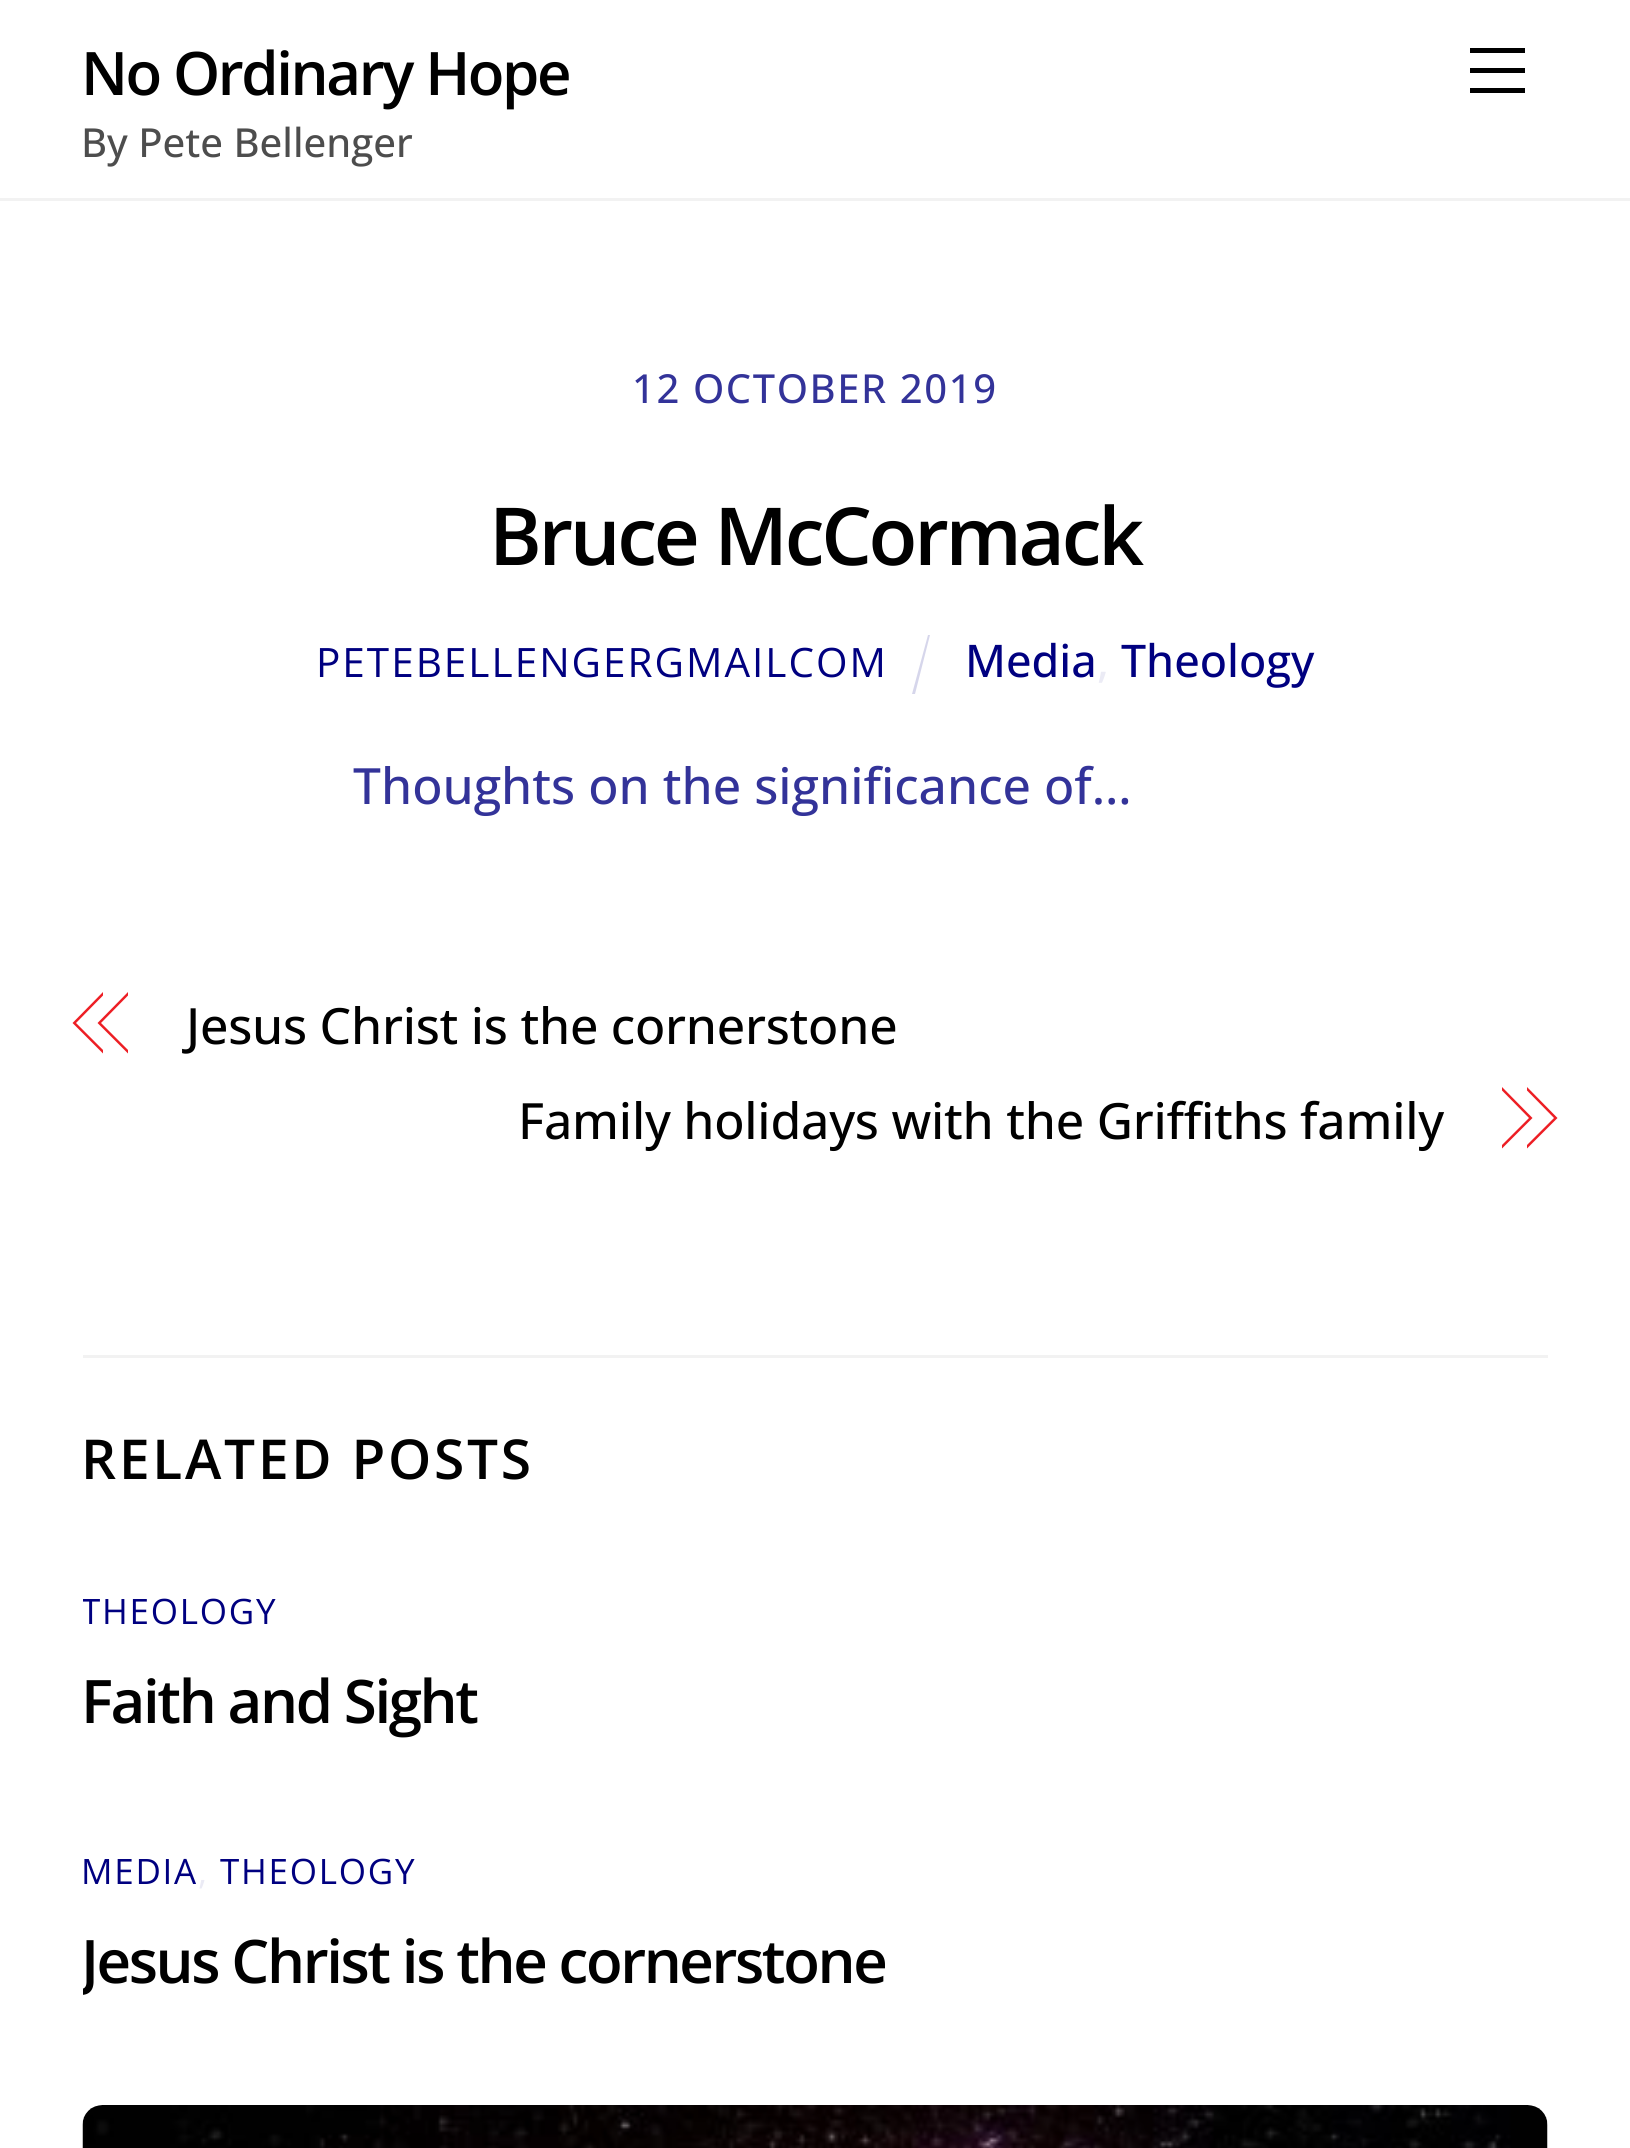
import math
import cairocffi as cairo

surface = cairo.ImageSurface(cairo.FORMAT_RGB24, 1630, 2148)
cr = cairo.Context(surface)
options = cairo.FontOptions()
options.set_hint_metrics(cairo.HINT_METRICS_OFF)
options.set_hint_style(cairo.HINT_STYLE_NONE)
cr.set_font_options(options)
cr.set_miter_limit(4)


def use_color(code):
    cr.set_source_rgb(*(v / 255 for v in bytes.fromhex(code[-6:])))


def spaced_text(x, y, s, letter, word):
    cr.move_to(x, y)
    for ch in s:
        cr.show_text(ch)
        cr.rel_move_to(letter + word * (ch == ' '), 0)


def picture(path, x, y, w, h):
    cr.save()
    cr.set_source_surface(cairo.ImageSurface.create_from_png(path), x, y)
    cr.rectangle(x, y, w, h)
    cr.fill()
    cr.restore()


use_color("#ffffff")
cr.paint()
use_color("#f2f2f2")
cr.rectangle(0, 198, 1630, 3)
cr.fill()
cr.select_font_face("Open Sans SemiBold")
cr.set_font_size(60)
use_color("#000000")
spaced_text(81, 95, "No Ordinary Hope", -2.4, 0)
cr.select_font_face("Open Sans Medium")
cr.set_font_size(40)
use_color("#4d4d4d")
cr.move_to(81, 157)
cr.show_text("By Pete Bellenger")
use_color("#000000")
cr.rectangle(1470, 88, 55, 5)
cr.fill()
cr.rectangle(1470, 48, 55, 5)
cr.fill()
cr.rectangle(1470, 68, 55, 5)
cr.fill()
use_color("#333399")
spaced_text(632, 403, "12 OCTOBER 2019", 1.6, 0)
cr.select_font_face("Open Sans SemiBold")
cr.set_font_size(80)
use_color("#000000")
spaced_text(489, 565, "Bruce McCormack", -3.25, 0)
cr.select_font_face("Open Sans")
cr.set_font_size(40.5)
use_color("#000080")
spaced_text(316, 677, "PETEBELLENGERGMAILCOM", 2, 0)
use_color("#d6d6eb")
cr.new_path()
cr.move_to(928, 635)
cr.line_to(930, 635)
cr.line_to(915, 694)
cr.line_to(912, 694)
cr.close_path()
cr.fill()
cr.select_font_face("Open Sans Medium")
cr.set_font_size(45)
use_color("#000080")
cr.move_to(965, 677)
cr.show_text("Media")
use_color("#ebebf5")
cr.move_to(1097, 677)
cr.show_text(",")
use_color("#000080")
cr.move_to(1121, 677)
cr.show_text("Theology")
cr.set_font_size(50)
use_color("#333399")
cr.move_to(353, 804)
cr.show_text("Thoughts on the significance of…")
use_color("#ed1e24")
cr.new_path()
cr.move_to(72.5, 1023)
cr.line_to(103, 992)
cr.line_to(103, 995.5)
cr.line_to(76, 1023)
cr.close_path()
cr.move_to(103, 1053.5)
cr.line_to(72.5, 1023)
cr.line_to(76, 1023)
cr.line_to(103, 1050)
cr.close_path()
cr.fill()
cr.new_path()
cr.move_to(97.5, 1023)
cr.line_to(128, 992)
cr.line_to(128, 995.5)
cr.line_to(101, 1023)
cr.close_path()
cr.move_to(128, 1053.5)
cr.line_to(97.5, 1023)
cr.line_to(101, 1023)
cr.line_to(128, 1050)
cr.close_path()
cr.fill()
use_color("#000000")
spaced_text(186, 1044, "Jesus Christ is the cornerstone", -0.25, 0)
spaced_text(518, 1139, "Family holidays with the Griffiths family", -0.25, 0)
use_color("#ed1e24")
cr.new_path()
cr.move_to(1527, 1087)
cr.line_to(1557.5, 1118)
cr.line_to(1554, 1118)
cr.line_to(1527, 1090.5)
cr.close_path()
cr.move_to(1557.5, 1118)
cr.line_to(1527, 1148.5)
cr.line_to(1527, 1145)
cr.line_to(1554, 1118)
cr.close_path()
cr.fill()
cr.new_path()
cr.move_to(1502, 1087)
cr.line_to(1532.5, 1118)
cr.line_to(1529, 1118)
cr.line_to(1502, 1090.5)
cr.close_path()
cr.move_to(1532.5, 1118)
cr.line_to(1502, 1148.5)
cr.line_to(1502, 1145)
cr.line_to(1529, 1118)
cr.close_path()
cr.fill()
use_color("#f2f2f2")
cr.rectangle(83, 1355, 1465, 3)
cr.fill()
cr.select_font_face("Open Sans SemiBold")
cr.set_font_size(55)
use_color("#000000")
spaced_text(81, 1479, "RELATED POSTS", 2.75, 0)
cr.save()
cr.rectangle(83, 1585, 1465, 215)
cr.clip()
cr.select_font_face("Open Sans")
cr.set_font_size(35)
use_color("#000080")
spaced_text(81, 1624, "THEOLOGY", 1.75, 0)
cr.restore()
cr.set_font_size(60)
spaced_text(81, 1723, "Faith and Sight", -2.4, 0)
cr.select_font_face("Open Sans")
cr.set_font_size(35)
use_color("#000080")
spaced_text(81, 1884, "MEDIA", 1.75, 0)
use_color("#ebebf5")
spaced_text(198, 1884, ",", 1.75, 0)
use_color("#000080")
spaced_text(220, 1884, "THEOLOGY", 1.75, 0)
cr.save()
cr.rectangle(83, 1845, 1465, 215)
cr.clip()
cr.select_font_face("Open Sans SemiBold")
cr.set_font_size(60)
use_color("#000000")
spaced_text(81, 1983, "Jesus Christ is the cornerstone", -2.4, 0)
cr.restore()
picture("img1.png", 82, 2105, 1466, 43)
surface.write_to_png("result.png")
